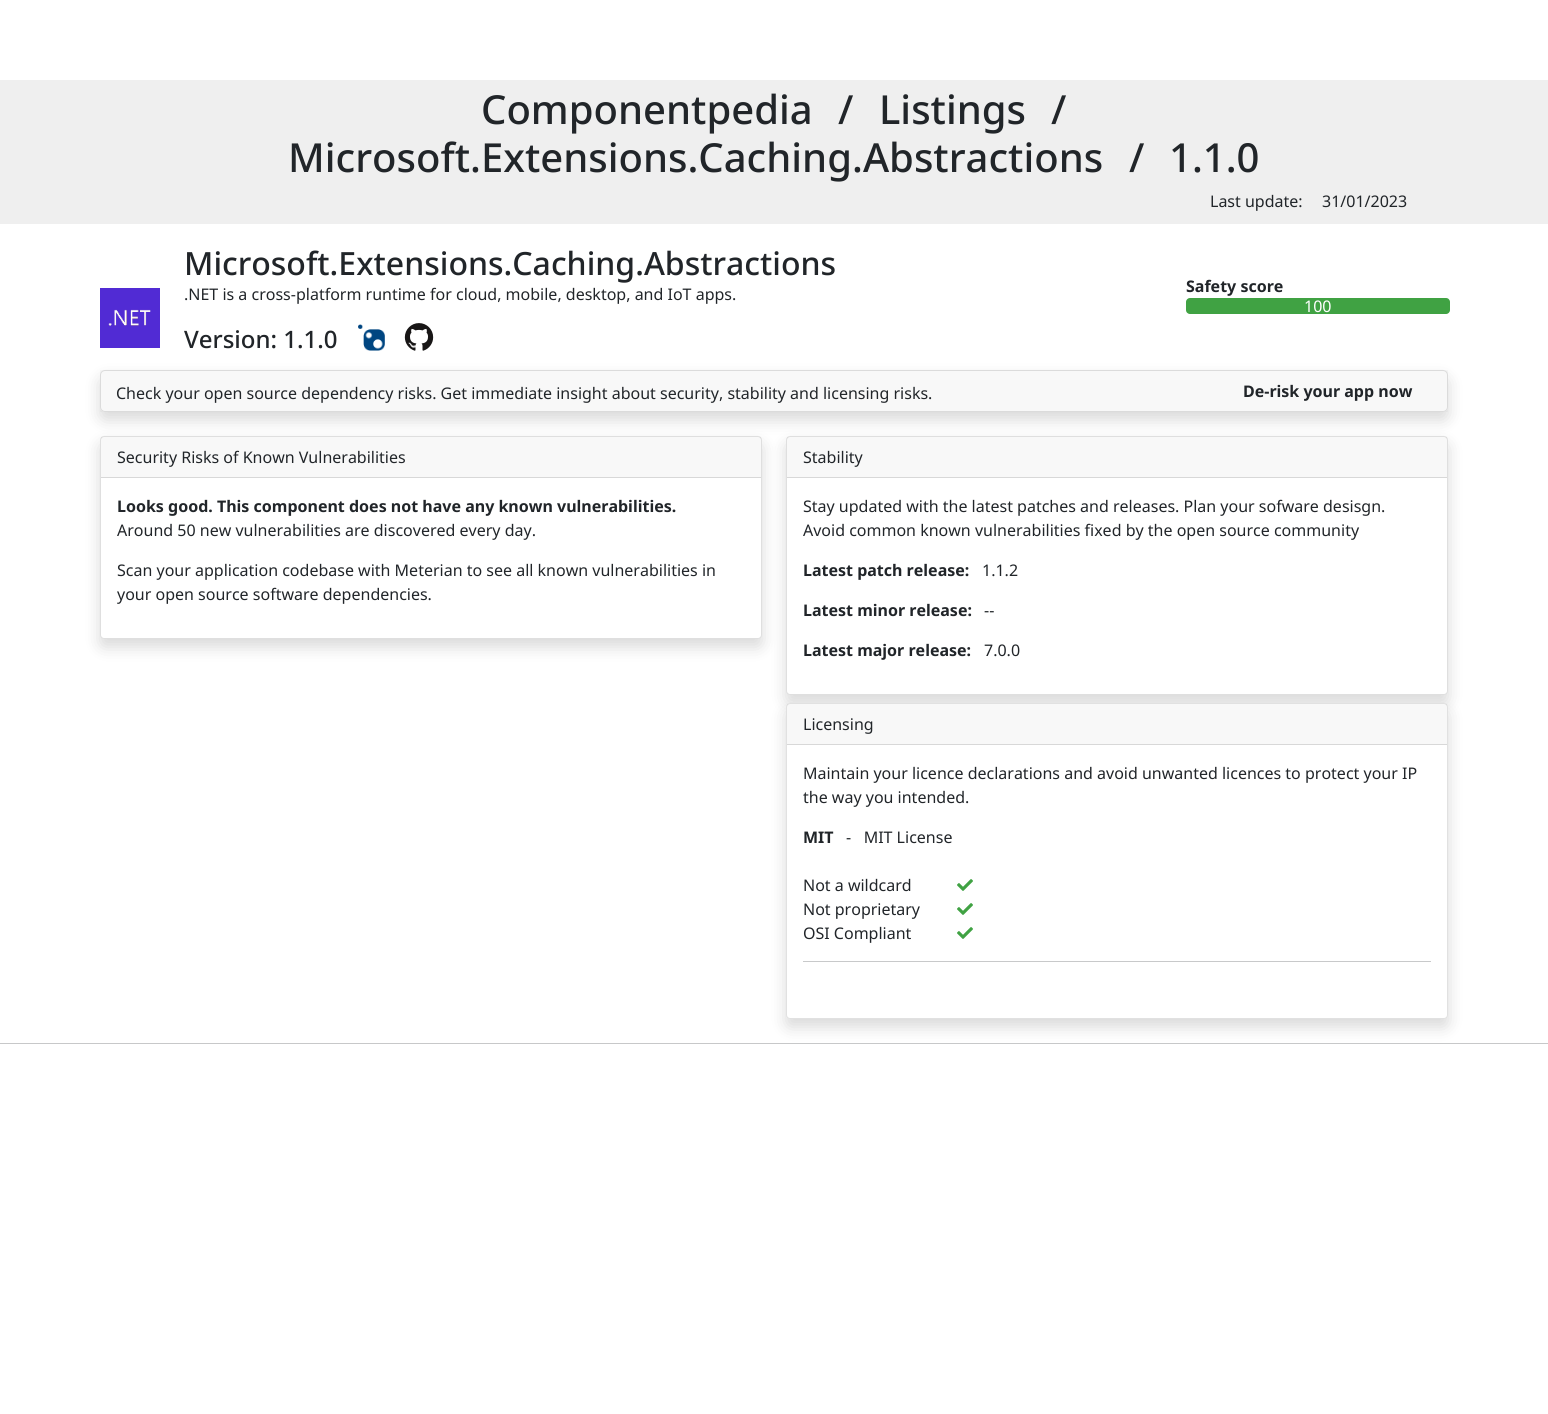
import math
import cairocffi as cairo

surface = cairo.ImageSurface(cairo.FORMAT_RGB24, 1548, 1414)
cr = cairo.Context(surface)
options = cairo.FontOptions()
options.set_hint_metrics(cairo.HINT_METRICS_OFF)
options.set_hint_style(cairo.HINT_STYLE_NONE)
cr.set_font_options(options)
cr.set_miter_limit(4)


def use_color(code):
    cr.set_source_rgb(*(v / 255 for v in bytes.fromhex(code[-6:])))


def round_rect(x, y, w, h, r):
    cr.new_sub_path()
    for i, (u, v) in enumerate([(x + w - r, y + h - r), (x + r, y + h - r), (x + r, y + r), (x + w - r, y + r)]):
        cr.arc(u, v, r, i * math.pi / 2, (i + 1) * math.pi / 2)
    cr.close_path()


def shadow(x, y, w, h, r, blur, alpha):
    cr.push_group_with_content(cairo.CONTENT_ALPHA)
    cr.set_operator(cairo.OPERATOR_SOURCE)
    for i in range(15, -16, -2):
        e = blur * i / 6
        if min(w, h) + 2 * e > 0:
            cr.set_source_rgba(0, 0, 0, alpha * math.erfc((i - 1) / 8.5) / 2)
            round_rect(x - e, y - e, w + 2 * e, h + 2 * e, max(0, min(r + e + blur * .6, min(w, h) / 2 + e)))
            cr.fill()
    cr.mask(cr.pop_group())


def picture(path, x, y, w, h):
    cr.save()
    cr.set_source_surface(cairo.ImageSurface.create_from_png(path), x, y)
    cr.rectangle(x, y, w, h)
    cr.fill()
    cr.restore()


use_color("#ffffff")
cr.paint()
use_color("#efefef")
cr.rectangle(0, 80, 1548, 144)
cr.fill()
cr.select_font_face("Noto Sans Medium")
cr.set_font_size(40)
use_color("#212529")
cr.move_to(481, 124)
cr.show_text("Componentpedia")
cr.move_to(838, 124)
cr.show_text("/")
cr.move_to(879, 124)
cr.show_text("Listings")
cr.move_to(1051, 124)
cr.show_text("/")
cr.move_to(288, 172)
cr.show_text("Microsoft.Extensions.Caching.Abstractions")
cr.move_to(1129, 172)
cr.show_text("/")
cr.move_to(1169, 172)
cr.show_text("1.1.0")
cr.select_font_face("Noto Sans")
cr.set_font_size(16)
cr.move_to(1210, 207)
cr.show_text("Last update:")
cr.move_to(1322, 207)
cr.show_text("31/01/2023")
picture("img1.png", 100, 288, 60, 60)
cr.select_font_face("Noto Sans Medium")
cr.set_font_size(32)
cr.move_to(184, 275)
cr.show_text("Microsoft.Extensions.Caching.Abstractions")
cr.select_font_face("Noto Sans")
cr.set_font_size(16)
cr.move_to(184, 300)
cr.show_text(".NET is a cross-platform runtime for cloud, mobile, desktop, and IoT apps.")
cr.select_font_face("Noto Sans Medium")
cr.set_font_size(24)
cr.move_to(184, 348)
cr.show_text("Version: 1.1.0")
picture("img2.png", 358, 324, 27, 27)
picture("img3.png", 404, 323, 30, 28)
cr.select_font_face("Noto Sans", cairo.FONT_SLANT_NORMAL, cairo.FONT_WEIGHT_BOLD)
cr.set_font_size(16)
cr.move_to(1186, 292)
cr.show_text("Safety score")
use_color("#40a243")
round_rect(1186, 298, 264, 16, 4)
cr.fill()
cr.select_font_face("Noto Sans")
use_color("#ffffff")
cr.move_to(1304, 312)
cr.show_text("100")
cr.save()
cr.set_fill_rule(cairo.FILL_RULE_EVEN_ODD)
cr.new_path()
cr.move_to(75, 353)
cr.line_to(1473, 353)
cr.line_to(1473, 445)
cr.line_to(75, 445)
cr.close_path()
cr.move_to(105, 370)
cr.line_to(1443, 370)
cr.curve_to(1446, 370, 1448, 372, 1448, 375)
cr.line_to(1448, 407)
cr.curve_to(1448, 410, 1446, 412, 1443, 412)
cr.line_to(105, 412)
cr.curve_to(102, 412, 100, 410, 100, 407)
cr.line_to(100, 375)
cr.curve_to(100, 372, 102, 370, 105, 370)
cr.close_path()
cr.clip()
use_color("#000000")
shadow(100, 378, 1348, 42, 5, 8, 0.15)
cr.restore()
cr.set_source_rgba(0, 0, 0, 0.03)
cr.rectangle(100, 370, 1348, 42)
cr.fill()
round_rect(100.5, 370.5, 1347, 41, 4.5)
cr.set_source_rgba(0, 0, 0, 0.12)
cr.set_line_width(1)
cr.stroke()
use_color("#212529")
cr.move_to(116, 399)
cr.show_text("Check your open source dependency risks. Get immediate insight about security, stability and licensing risks.")
cr.select_font_face("Noto Sans", cairo.FONT_SLANT_NORMAL, cairo.FONT_WEIGHT_BOLD)
cr.move_to(1243, 397)
cr.show_text("De-risk your app now")
use_color("#000000")
shadow(100, 444, 662, 203, 4, 8, 0.15)
use_color("#ffffff")
round_rect(100.5, 436.5, 661, 202, 3.5)
cr.fill_preserve()
use_color("#dfdfdf")
cr.stroke()
cr.set_source_rgba(0, 0, 0, 0.03)
cr.rectangle(101, 437, 660, 40)
cr.fill()
use_color("#d8d8d8")
cr.rectangle(101, 477, 660, 1)
cr.fill()
cr.select_font_face("Noto Sans")
use_color("#212529")
cr.move_to(117, 463)
cr.show_text("Security Risks of Known Vulnerabilities")
cr.select_font_face("Noto Sans", cairo.FONT_SLANT_NORMAL, cairo.FONT_WEIGHT_BOLD)
cr.move_to(117, 512)
cr.show_text("Looks good. This component does not have any known vulnerabilities.")
cr.select_font_face("Noto Sans")
cr.move_to(117, 536)
cr.show_text("Around 50 new vulnerabilities are discovered every day.")
cr.move_to(117, 576)
cr.show_text("Scan your application codebase with Meterian to see all known vulnerabilities in")
cr.move_to(117, 600)
cr.show_text("your open source software dependencies.")
use_color("#000000")
shadow(786, 444, 662, 259, 4, 8, 0.15)
use_color("#ffffff")
round_rect(786.5, 436.5, 661, 258, 3.5)
cr.fill_preserve()
use_color("#dfdfdf")
cr.stroke()
cr.set_source_rgba(0, 0, 0, 0.03)
cr.rectangle(787, 437, 660, 40)
cr.fill()
use_color("#d8d8d8")
cr.rectangle(787, 477, 660, 1)
cr.fill()
use_color("#212529")
cr.move_to(803, 463)
cr.show_text("Stability")
cr.move_to(803, 512)
cr.show_text("Stay updated with the latest patches and releases. Plan your sofware desisgn.")
cr.move_to(803, 536)
cr.show_text("Avoid common known vulnerabilities fixed by the open source community")
cr.select_font_face("Noto Sans", cairo.FONT_SLANT_NORMAL, cairo.FONT_WEIGHT_BOLD)
cr.move_to(803, 576)
cr.show_text("Latest patch release:")
cr.select_font_face("Noto Sans")
cr.move_to(982, 576)
cr.show_text("1.1.2")
cr.select_font_face("Noto Sans", cairo.FONT_SLANT_NORMAL, cairo.FONT_WEIGHT_BOLD)
cr.move_to(803, 616)
cr.show_text("Latest minor release:")
cr.select_font_face("Noto Sans")
cr.move_to(984, 616)
cr.show_text("--")
cr.select_font_face("Noto Sans", cairo.FONT_SLANT_NORMAL, cairo.FONT_WEIGHT_BOLD)
cr.move_to(803, 656)
cr.show_text("Latest major release:")
cr.select_font_face("Noto Sans")
cr.move_to(984, 656)
cr.show_text("7.0.0")
use_color("#000000")
shadow(786, 711, 662, 316, 4, 8, 0.15)
use_color("#ffffff")
round_rect(786, 703, 662, 316, 4)
cr.fill()
round_rect(786.5, 703.5, 661, 315, 3.5)
cr.set_source_rgba(0, 0, 0, 0.12)
cr.stroke()
cr.set_source_rgba(0, 0, 0, 0.03)
cr.rectangle(787, 704, 660, 40)
cr.fill()
use_color("#d8d8d8")
cr.rectangle(787, 744, 660, 1)
cr.fill()
use_color("#212529")
cr.move_to(803, 730)
cr.show_text("Licensing")
cr.move_to(803, 779)
cr.show_text("Maintain your licence declarations and avoid unwanted licences to protect your IP")
cr.move_to(803, 803)
cr.show_text("the way you intended.")
cr.select_font_face("Noto Sans", cairo.FONT_SLANT_NORMAL, cairo.FONT_WEIGHT_BOLD)
cr.move_to(803, 843)
cr.show_text("MIT")
cr.select_font_face("Noto Sans")
cr.move_to(846, 843)
cr.show_text("-   MIT License")
cr.move_to(803, 891)
cr.show_text("Not a wildcard")
picture("img4.png", 957, 879, 16, 12)
cr.move_to(803, 915)
cr.show_text("Not proprietary")
picture("img4.png", 957, 903, 16, 12)
cr.move_to(803, 939)
cr.show_text("OSI Compliant")
picture("img4.png", 957, 927, 16, 12)
use_color("#c8c9ca")
cr.rectangle(803, 961, 628, 1)
cr.fill()
use_color("#c7c8c9")
cr.rectangle(0, 1043, 1548, 1)
cr.fill()
surface.write_to_png("result.png")
